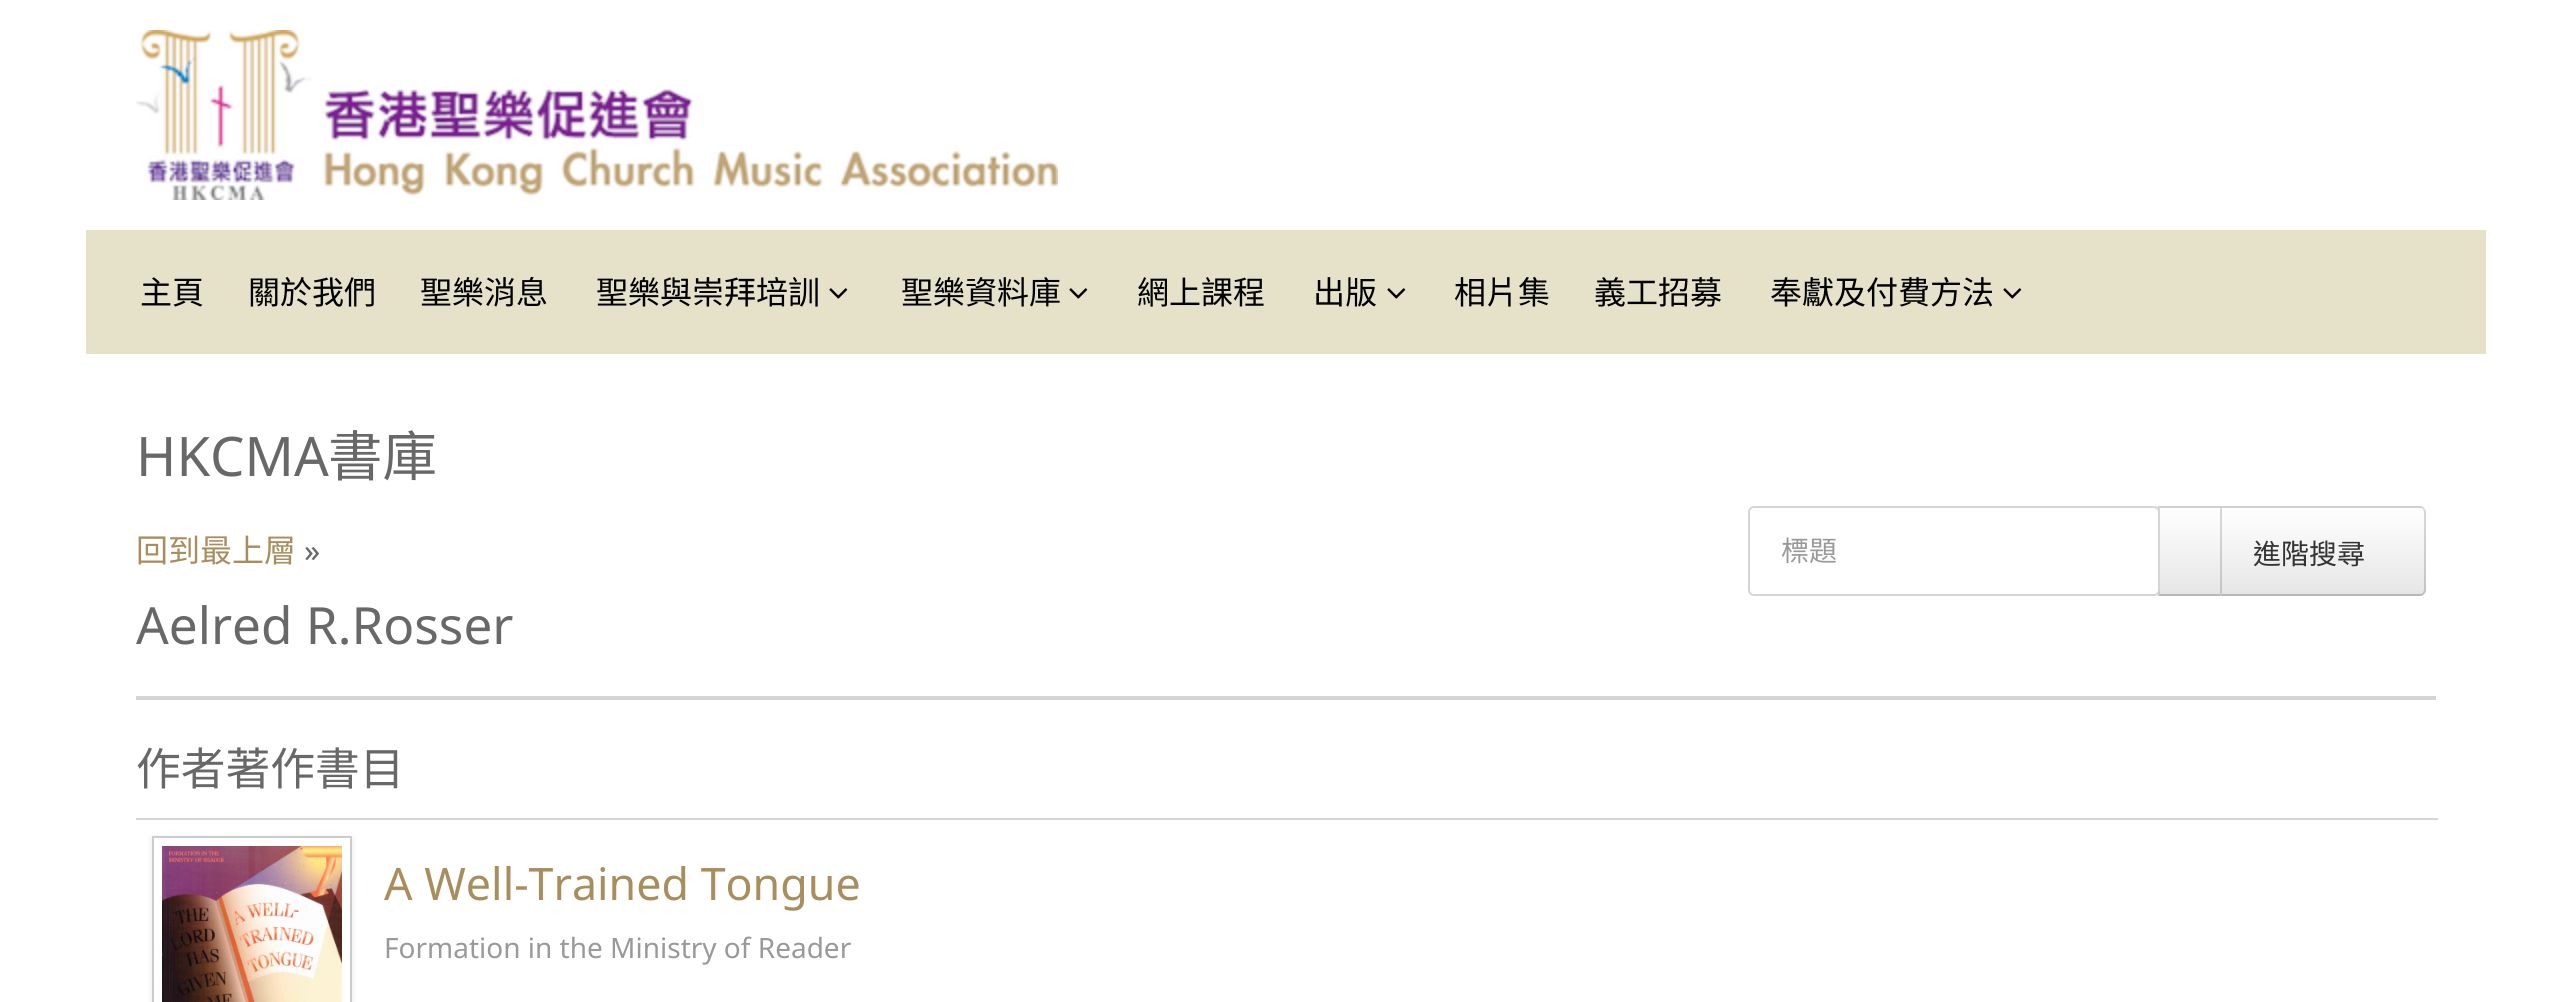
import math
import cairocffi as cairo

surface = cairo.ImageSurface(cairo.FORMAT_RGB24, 2571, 1002)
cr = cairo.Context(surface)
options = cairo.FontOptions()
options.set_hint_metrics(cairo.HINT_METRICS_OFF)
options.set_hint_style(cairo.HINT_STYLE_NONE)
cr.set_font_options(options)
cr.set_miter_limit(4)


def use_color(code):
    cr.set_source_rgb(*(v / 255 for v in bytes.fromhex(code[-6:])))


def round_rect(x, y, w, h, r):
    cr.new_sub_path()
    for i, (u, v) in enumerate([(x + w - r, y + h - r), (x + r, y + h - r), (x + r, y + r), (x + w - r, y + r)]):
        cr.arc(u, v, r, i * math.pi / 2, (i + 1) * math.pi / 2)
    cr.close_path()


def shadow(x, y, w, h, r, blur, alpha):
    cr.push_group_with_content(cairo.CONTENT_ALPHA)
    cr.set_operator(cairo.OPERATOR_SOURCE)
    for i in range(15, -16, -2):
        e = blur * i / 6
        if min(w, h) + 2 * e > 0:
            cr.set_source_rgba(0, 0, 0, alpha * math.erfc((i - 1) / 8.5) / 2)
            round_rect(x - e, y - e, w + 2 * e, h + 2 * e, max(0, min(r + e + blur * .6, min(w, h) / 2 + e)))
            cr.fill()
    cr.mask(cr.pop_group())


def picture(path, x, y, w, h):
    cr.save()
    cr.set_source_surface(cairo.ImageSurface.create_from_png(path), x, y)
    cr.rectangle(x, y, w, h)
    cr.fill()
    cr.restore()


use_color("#ffffff")
cr.paint()
picture("img1.png", 136, 30, 922, 170)
use_color("#e5e2c9")
cr.rectangle(86, 230, 2400, 124)
cr.fill()
cr.select_font_face("Noto Sans CJK TC")
cr.set_font_size(32)
use_color("#000000")
cr.move_to(140, 304)
cr.show_text("主頁")
cr.move_to(248, 304)
cr.show_text("關於我們")
cr.move_to(420, 304)
cr.show_text("聖樂消息")
cr.move_to(596, 304)
cr.show_text("聖樂與崇拜培訓")
picture("img2.png", 829, 288, 19, 11)
cr.move_to(901, 304)
cr.show_text("聖樂資料庫")
picture("img2.png", 1069, 288, 19, 11)
cr.move_to(1137, 304)
cr.show_text("網上課程")
cr.move_to(1313, 304)
cr.show_text("出版")
picture("img2.png", 1387, 288, 19, 11)
cr.move_to(1454, 304)
cr.show_text("相片集")
cr.move_to(1594, 304)
cr.show_text("義工招募")
cr.move_to(1770, 304)
cr.show_text("奉獻及付費方法")
picture("img2.png", 2003, 288, 19, 11)
cr.select_font_face("Noto Sans")
cr.set_font_size(54.5)
use_color("#686868")
cr.move_to(136, 476)
cr.show_text("HKCMA")
cr.select_font_face("Noto Sans CJK TC")
cr.move_to(328, 476)
cr.show_text("書庫")
cr.set_font_size(32)
use_color("#a88d5d")
cr.move_to(136, 562)
cr.show_text("回到最上層")
cr.select_font_face("Noto Sans")
use_color("#686868")
cr.move_to(304, 562)
cr.show_text("»")
use_color("#f5f5f5")
cr.rectangle(2158, 506, 62, 90)
cr.fill()
gradient = cairo.LinearGradient(2190, 508, 2190, 594)
gradient.add_color_stop_rgba(0, 1, 1, 1, 1)
gradient.add_color_stop_rgba(1, 0.902, 0.902, 0.902, 1)
cr.set_source(gradient)
cr.rectangle(2158, 508, 62, 86)
cr.fill()
use_color("#d0d0d0")
cr.new_path()
cr.move_to(2158, 506)
cr.line_to(2222, 506)
cr.line_to(2220, 508)
cr.line_to(2160, 508)
cr.close_path()
cr.fill()
cr.set_source_rgba(0, 0, 0, 0.25)
cr.new_path()
cr.move_to(2222, 596)
cr.line_to(2158, 596)
cr.line_to(2160, 594)
cr.line_to(2220, 594)
cr.close_path()
cr.fill()
cr.set_source_rgba(0, 0, 0, 0.15)
cr.new_path()
cr.move_to(2158, 596)
cr.line_to(2158, 506)
cr.line_to(2160, 508)
cr.line_to(2160, 594)
cr.close_path()
cr.fill()
use_color("#ffffff")
round_rect(1749, 507, 410, 88, 5)
cr.fill_preserve()
use_color("#d5d5d5")
cr.stroke()
cr.select_font_face("Noto Sans CJK TC")
cr.set_font_size(28)
use_color("#999999")
cr.move_to(1781, 561)
cr.show_text("標題")
use_color("#f5f5f5")
cr.new_path()
cr.move_to(2220, 506)
cr.line_to(2420, 506)
cr.curve_to(2423.5, 506, 2426, 508.5, 2426, 512)
cr.line_to(2426, 590)
cr.curve_to(2426, 593.5, 2423.5, 596, 2420, 596)
cr.line_to(2220, 596)
cr.close_path()
cr.fill()
cr.save()
cr.new_path()
cr.move_to(2220, 506)
cr.line_to(2420, 506)
cr.curve_to(2423.5, 506, 2426, 508.5, 2426, 512)
cr.line_to(2426, 590)
cr.curve_to(2426, 593.5, 2423.5, 596, 2420, 596)
cr.line_to(2220, 596)
cr.close_path()
cr.clip()
gradient = cairo.LinearGradient(2323, 508, 2323, 594)
gradient.add_color_stop_rgba(0, 1, 1, 1, 1)
gradient.add_color_stop_rgba(1, 0.902, 0.902, 0.902, 1)
cr.set_source(gradient)
cr.rectangle(2220, 508, 206, 86)
cr.fill()
cr.restore()
cr.set_source_rgba(0, 0, 0, 0.15)
cr.new_path()
cr.move_to(2220, 506)
cr.line_to(2222, 508)
cr.line_to(2420, 508)
cr.curve_to(2421, 508, 2422, 508, 2423, 509)
cr.line_to(2424, 508)
cr.curve_to(2423, 507, 2422, 506, 2420, 506)
cr.close_path()
cr.fill()
cr.new_path()
cr.move_to(2426, 590)
cr.line_to(2426, 511)
cr.line_to(2424, 508)
cr.line_to(2423, 509)
cr.line_to(2424, 512)
cr.line_to(2424, 590)
cr.line_to(2423, 593)
cr.line_to(2424, 594)
cr.curve_to(2425, 593, 2426, 592, 2426, 590)
cr.close_path()
cr.fill()
cr.set_source_rgba(0, 0, 0, 0.25)
cr.new_path()
cr.move_to(2420, 596)
cr.curve_to(2422, 596, 2423, 595, 2424, 594)
cr.line_to(2423, 593)
cr.curve_to(2422, 594, 2421, 594, 2420, 594)
cr.line_to(2222, 594)
cr.line_to(2220, 596)
cr.close_path()
cr.fill()
cr.set_source_rgba(0, 0, 0, 0.15)
cr.new_path()
cr.move_to(2220, 506)
cr.line_to(2220, 596)
cr.line_to(2222, 594)
cr.line_to(2222, 508)
cr.close_path()
cr.fill()
use_color("#333333")
cr.move_to(2253, 564)
cr.show_text("進階搜尋")
cr.select_font_face("Noto Sans")
cr.set_font_size(51.25)
use_color("#686868")
cr.move_to(136, 644)
cr.show_text("Aelred R.Rosser")
use_color("#d5d5d5")
cr.rectangle(136, 696, 2300, 4)
cr.fill()
cr.select_font_face("Noto Sans CJK TC")
cr.set_font_size(44.75)
use_color("#686868")
cr.move_to(136, 785)
cr.show_text("作者著作書目")
cr.save()
cr.set_fill_rule(cairo.FILL_RULE_EVEN_ODD)
cr.new_path()
cr.move_to(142, 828)
cr.line_to(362, 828)
cr.line_to(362, 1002)
cr.line_to(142, 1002)
cr.close_path()
cr.move_to(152, 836)
cr.line_to(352, 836)
cr.line_to(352, 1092)
cr.line_to(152, 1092)
cr.close_path()
cr.clip()
use_color("#000000")
shadow(152, 838, 200, 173, 0, 3, 0.1)
cr.restore()
cr.rectangle(153, 837, 198, 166)
use_color("#cccccc")
cr.stroke()
picture("img3.png", 162, 846, 180, 156)
use_color("#d5d5d5")
cr.rectangle(136, 818, 2302, 2)
cr.fill()
cr.select_font_face("Noto Sans")
use_color("#a88d5d")
cr.move_to(384, 900)
cr.show_text("A Well-Trained Tongue")
cr.set_font_size(28)
use_color("#999999")
cr.move_to(384, 958)
cr.show_text("Formation in the Ministry of Reader")
surface.write_to_png("result.png")
